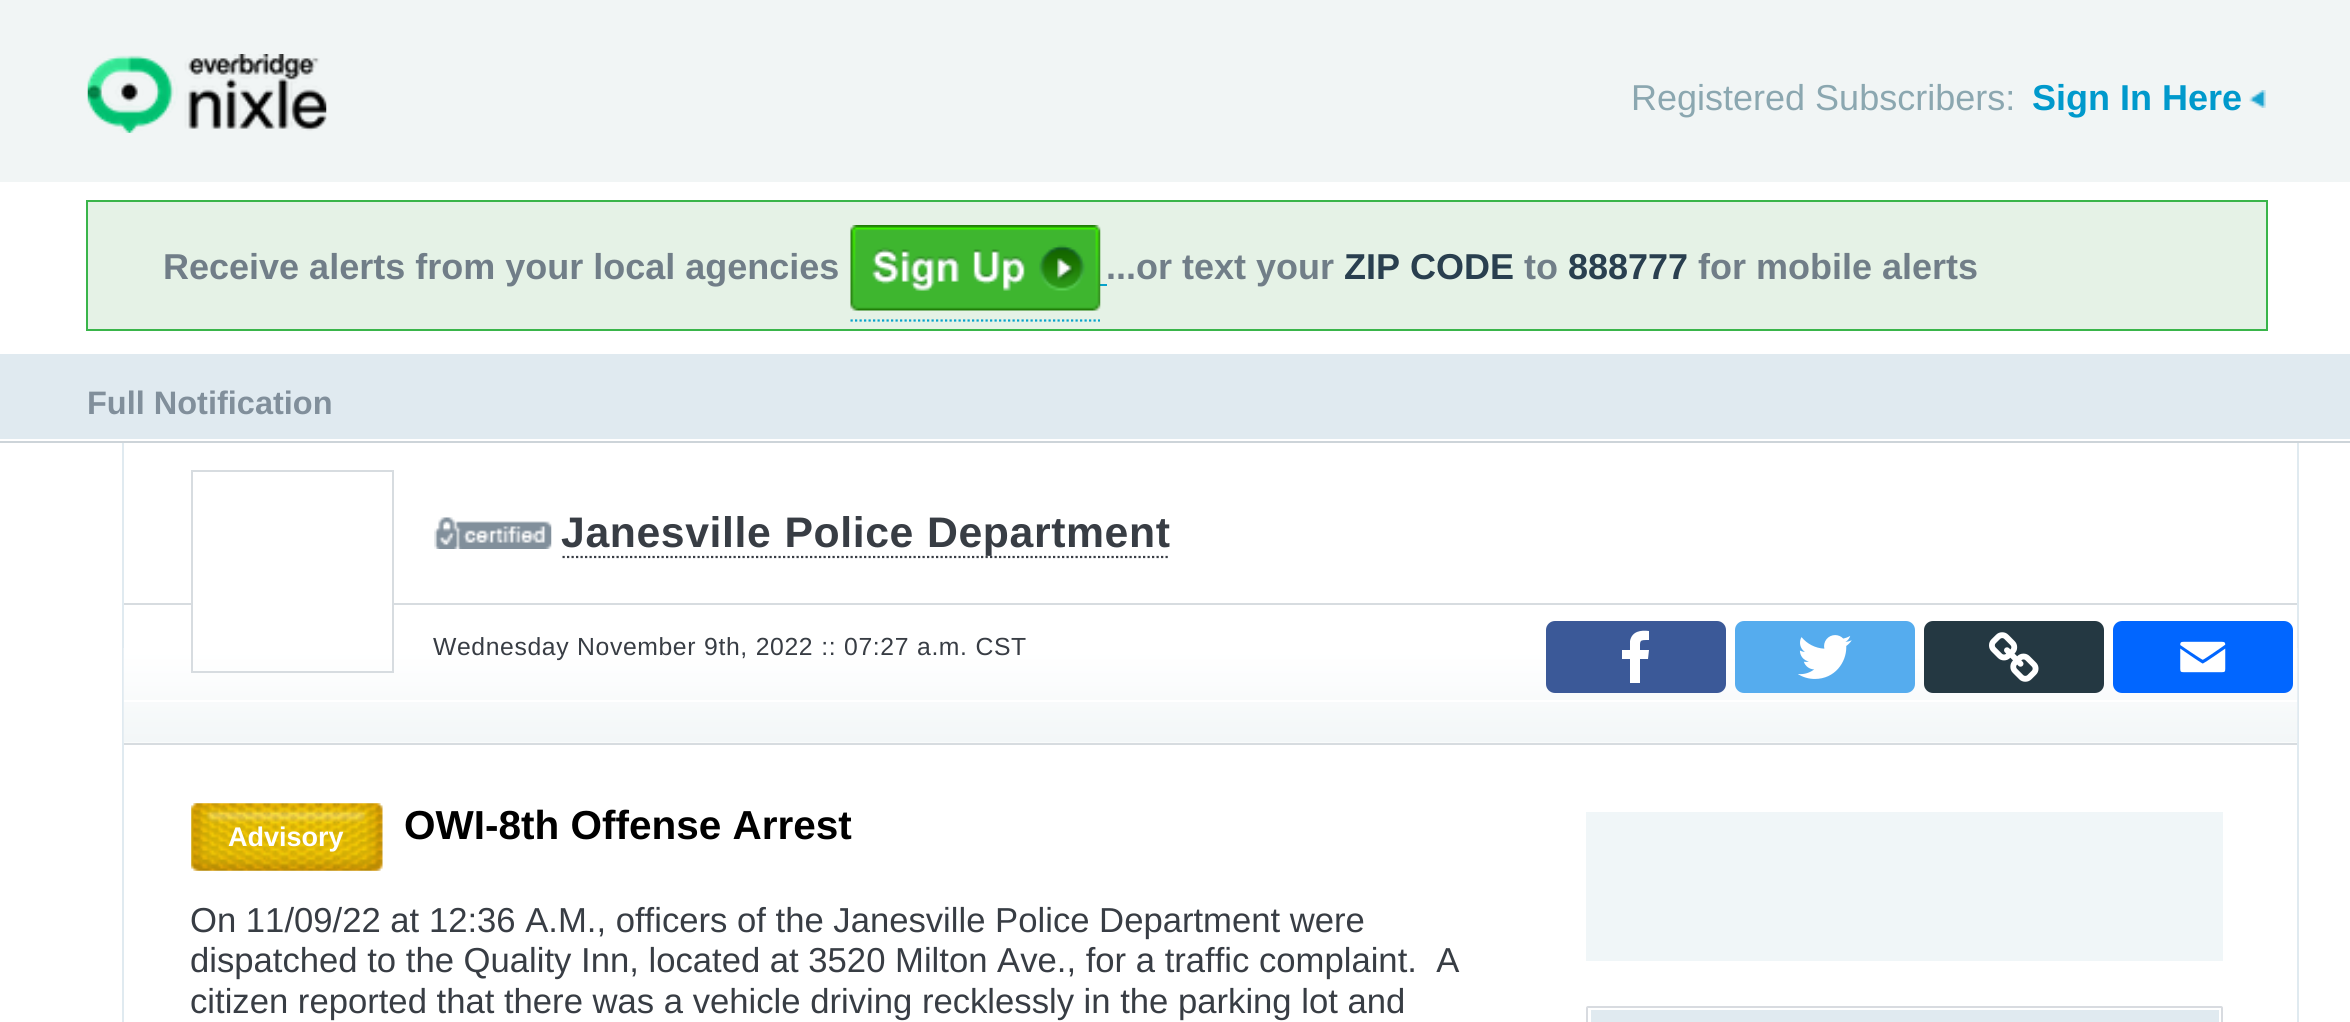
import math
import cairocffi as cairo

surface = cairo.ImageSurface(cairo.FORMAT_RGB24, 2350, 1022)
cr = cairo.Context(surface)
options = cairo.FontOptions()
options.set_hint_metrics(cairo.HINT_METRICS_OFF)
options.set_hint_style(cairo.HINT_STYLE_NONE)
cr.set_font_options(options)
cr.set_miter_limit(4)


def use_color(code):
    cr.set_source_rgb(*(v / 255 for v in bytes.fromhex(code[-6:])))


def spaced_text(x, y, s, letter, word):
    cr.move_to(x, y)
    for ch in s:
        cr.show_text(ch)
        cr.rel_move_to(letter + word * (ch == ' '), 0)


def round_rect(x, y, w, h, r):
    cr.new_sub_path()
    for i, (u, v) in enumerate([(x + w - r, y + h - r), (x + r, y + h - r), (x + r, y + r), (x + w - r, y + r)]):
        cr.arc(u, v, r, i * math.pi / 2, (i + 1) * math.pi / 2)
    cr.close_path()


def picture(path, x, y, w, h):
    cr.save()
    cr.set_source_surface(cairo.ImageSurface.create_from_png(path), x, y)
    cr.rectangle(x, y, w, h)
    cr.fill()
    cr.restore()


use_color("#f1f5f5")
cr.paint()
picture("img1.png", 87, 54, 240, 79)
cr.select_font_face("Liberation Sans")
cr.set_font_size(36)
use_color("#8ba7b0")
cr.move_to(1631, 110)
cr.show_text("Registered Subscribers:")
picture("img2.png", 2249, 90, 17, 18)
cr.select_font_face("Liberation Sans", cairo.FONT_SLANT_NORMAL, cairo.FONT_WEIGHT_BOLD)
use_color("#0099cc")
cr.move_to(2032, 110)
cr.show_text("Sign In Here")
use_color("#ffffff")
cr.rectangle(0, 182, 2350, 172)
cr.fill()
use_color("#e5f2e6")
cr.rectangle(87, 201, 2180, 129)
cr.fill_preserve()
use_color("#39b54a")
cr.stroke()
use_color("#717e88")
cr.move_to(163, 279)
cr.show_text("Receive alerts from your local agencies")
cr.new_path()
cr.move_to(850.5, 320.5)
cr.line_to(1100, 320.5)
use_color("#07a2ca")
cr.set_line_width(2.2)
cr.set_dash([2.25, 2.25])
cr.stroke()
cr.rectangle(1100, 284, 7, 2)
cr.fill()
picture("img3.png", 850, 225, 251, 86)
use_color("#717e88")
cr.move_to(1106, 279)
cr.show_text("...or text your")
use_color("#293f4f")
cr.move_to(1344, 279)
cr.show_text("ZIP CODE")
use_color("#717e88")
cr.move_to(1524, 279)
cr.show_text("to")
use_color("#293f4f")
cr.move_to(1568, 279)
cr.show_text("888777")
use_color("#717e88")
cr.move_to(1698, 279)
cr.show_text("for mobile alerts")
use_color("#e0eaf0")
cr.rectangle(0, 354, 2350, 85)
cr.fill()
use_color("#ffffff")
cr.rectangle(0, 439, 2350, 2)
cr.fill()
cr.set_font_size(32.5)
use_color("#818f9b")
cr.move_to(87, 414)
cr.show_text("Full Notification")
use_color("#ffffff")
cr.rectangle(0, 443, 2350, 579)
cr.fill()
use_color("#cdd4d9")
cr.rectangle(0, 441, 2350, 2)
cr.fill()
use_color("#e0eaf0")
cr.rectangle(2297, 443, 2, 579)
cr.fill()
cr.rectangle(122, 443, 2, 579)
cr.fill()
picture("img4.png", 123, 648, 2175, 95)
use_color("#d7dce0")
cr.rectangle(124, 743, 2173, 2)
cr.fill()
cr.rectangle(124, 603, 2173, 2)
cr.fill()
use_color("#ffffff")
cr.rectangle(193, 603, 199, 2)
cr.fill()
cr.rectangle(192, 471, 201, 201)
use_color("#d7dce0")
cr.set_line_width(2)
cr.set_dash([])
cr.stroke()
picture("img5.png", 434, 517, 118, 32)
cr.new_path()
cr.move_to(562.5, 557)
cr.line_to(1170, 557)
use_color("#383d44")
cr.set_line_width(2.2)
cr.set_dash([2.25, 2.25])
cr.stroke()
cr.set_font_size(42.75)
spaced_text(561, 547, "Janesville Police Department", 0.6, 0.5)
use_color("#ffffff")
cr.rectangle(124, 700, 2173, 2)
cr.fill()
cr.select_font_face("Liberation Sans")
cr.set_font_size(24.75)
use_color("#383d44")
spaced_text(433, 655, "Wednesday November 9th, 2022 :: 07:27 a.m. CST", 0.6, 0.5)
use_color("#3b5998")
round_rect(1546, 621, 180, 72, 9)
cr.fill()
use_color("#ffffff")
cr.new_path()
cr.move_to(1640, 683)
cr.line_to(1640, 659)
cr.line_to(1648, 659)
cr.line_to(1649, 650)
cr.line_to(1640, 650)
cr.curve_to(1640, 640, 1639, 640, 1649, 640)
cr.line_to(1649, 631)
cr.curve_to(1641, 630, 1632, 631, 1630, 641)
cr.line_to(1630, 650)
cr.line_to(1622, 650)
cr.line_to(1622, 659)
cr.line_to(1630, 659)
cr.line_to(1630, 683)
cr.close_path()
cr.fill()
use_color("#55acee")
round_rect(1735, 621, 180, 72, 9)
cr.fill()
picture("img6.png", 1798, 635, 54, 44)
use_color("#243842")
round_rect(1924, 621, 180, 72, 9)
cr.fill()
picture("img7.png", 1989, 632, 50, 50)
use_color("#0166ff")
round_rect(2113, 621, 180, 72, 9)
cr.fill()
picture("img8.png", 2180, 641, 46, 32)
picture("img9.png", 191, 803, 192, 68)
cr.select_font_face("Liberation Sans", cairo.FONT_SLANT_NORMAL, cairo.FONT_WEIGHT_BOLD)
cr.set_font_size(27)
use_color("#ffffff")
cr.move_to(228, 846)
cr.show_text("Advisory")
cr.set_font_size(40.5)
use_color("#000000")
cr.move_to(404, 839)
cr.show_text("OWI-8th Offense Arrest")
cr.select_font_face("Liberation Sans")
cr.set_font_size(34.65)
use_color("#383d44")
cr.move_to(190, 932)
cr.show_text("On 11/09/22 at 12:36 A.M., officers of the Janesville Police Department were")
cr.move_to(190, 972)
cr.show_text("dispatched to the Quality Inn, located at 3520 Milton Ave., for a traffic complaint.  A")
cr.move_to(190, 1013)
cr.show_text("citizen reported that there was a vehicle driving recklessly in the parking lot and")
use_color("#f0f6f8")
cr.rectangle(1586, 812, 637, 149)
cr.fill()
round_rect(1587, 1007, 635, 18, 1)
use_color("#d8dbe0")
cr.set_line_width(2)
cr.set_dash([])
cr.stroke()
use_color("#e0eaf0")
cr.rectangle(1591, 1010, 628, 12)
cr.fill()
surface.write_to_png("result.png")
